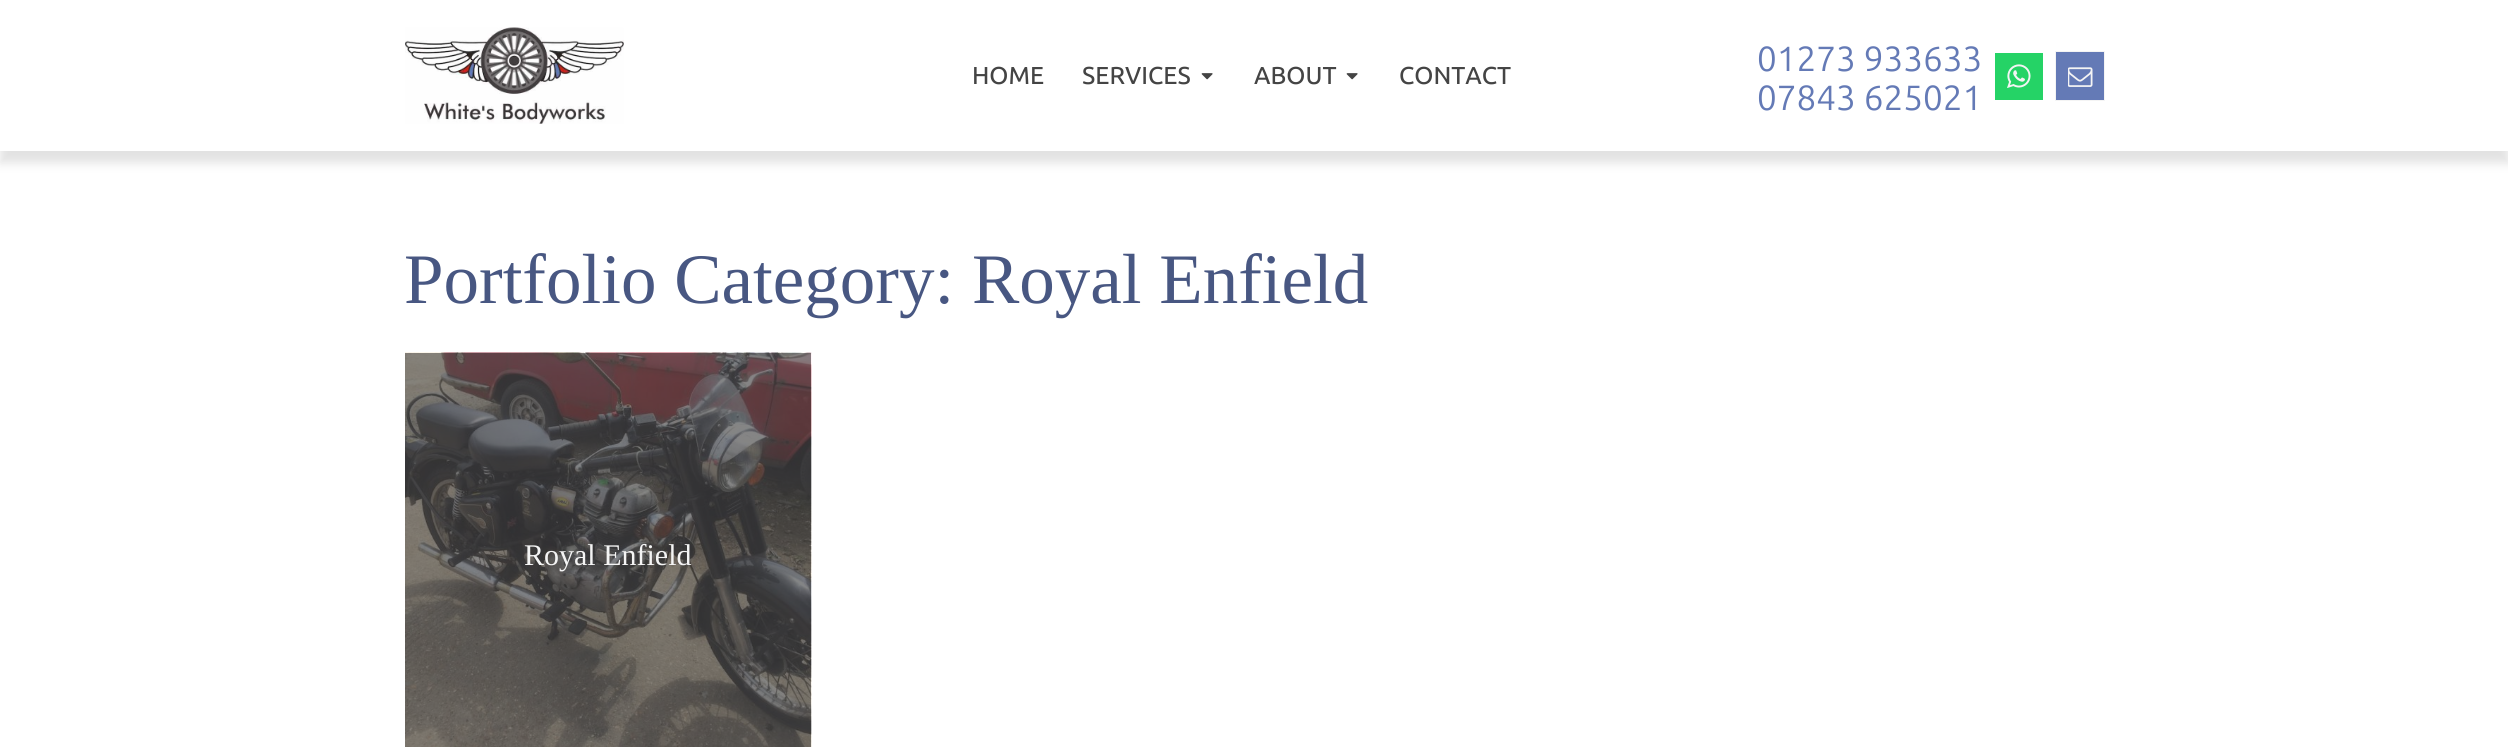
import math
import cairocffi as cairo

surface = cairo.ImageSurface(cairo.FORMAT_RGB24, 2508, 747)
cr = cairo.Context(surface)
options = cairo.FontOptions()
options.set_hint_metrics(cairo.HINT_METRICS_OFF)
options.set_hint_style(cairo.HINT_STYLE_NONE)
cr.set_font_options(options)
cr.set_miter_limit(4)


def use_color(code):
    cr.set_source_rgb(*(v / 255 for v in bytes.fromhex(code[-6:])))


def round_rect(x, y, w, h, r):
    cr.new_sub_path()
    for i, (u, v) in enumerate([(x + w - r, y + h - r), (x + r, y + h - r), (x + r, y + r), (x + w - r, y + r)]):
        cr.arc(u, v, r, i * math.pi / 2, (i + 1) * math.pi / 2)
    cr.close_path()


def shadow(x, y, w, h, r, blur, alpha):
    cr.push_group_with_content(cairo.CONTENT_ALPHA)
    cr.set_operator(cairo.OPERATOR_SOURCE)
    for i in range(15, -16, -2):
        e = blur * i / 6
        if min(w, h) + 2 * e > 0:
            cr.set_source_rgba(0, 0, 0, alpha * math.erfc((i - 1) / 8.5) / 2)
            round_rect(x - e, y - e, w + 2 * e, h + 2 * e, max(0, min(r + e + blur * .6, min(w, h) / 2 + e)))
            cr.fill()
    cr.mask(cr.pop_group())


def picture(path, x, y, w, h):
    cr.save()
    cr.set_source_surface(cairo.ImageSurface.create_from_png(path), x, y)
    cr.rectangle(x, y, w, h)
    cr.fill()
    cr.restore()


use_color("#ffffff")
cr.paint()
cr.save()
cr.rectangle(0, 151, 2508, 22)
cr.clip()
use_color("#e2e2e2")
shadow(0, 11, 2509, 152, 0, 5, 1)
cr.restore()
picture("img1.png", 405, 27, 219, 97)
cr.select_font_face("Ubuntu Medium")
cr.set_font_size(24.5)
use_color("#444444")
cr.move_to(972, 84)
cr.show_text("HOME")
cr.move_to(1082, 84)
cr.show_text("SERVICES")
picture("img2.png", 1201, 73, 12, 7)
cr.move_to(1254, 84)
cr.show_text("ABOUT")
picture("img2.png", 1346, 73, 12, 7)
cr.move_to(1399, 84)
cr.show_text("CONTACT")
cr.select_font_face("Ubuntu")
cr.set_font_size(35)
use_color("#647ab6")
cr.move_to(1757, 71)
cr.show_text("01273 933633")
cr.move_to(1757, 110)
cr.show_text("07843 625021")
use_color("#25d366")
cr.rectangle(1995, 53, 48, 47)
cr.fill()
picture("img3.png", 2007, 64, 24, 24)
use_color("#647ab6")
cr.rectangle(2055.5, 51.5, 49, 49)
cr.fill_preserve()
use_color("#f4f4f4")
cr.set_line_width(1)
cr.stroke()
picture("img4.png", 2068, 67, 25, 20)
cr.select_font_face("Liberation Serif")
cr.set_font_size(71)
use_color("#485782")
cr.move_to(404, 303)
cr.show_text("Portfolio Category: Royal Enfield")
picture("img5.png", 405, 352, 407, 395)
cr.set_font_size(30)
use_color("#f4f4f4")
cr.move_to(524, 565)
cr.show_text("Royal Enfield")
surface.write_to_png("result.png")
